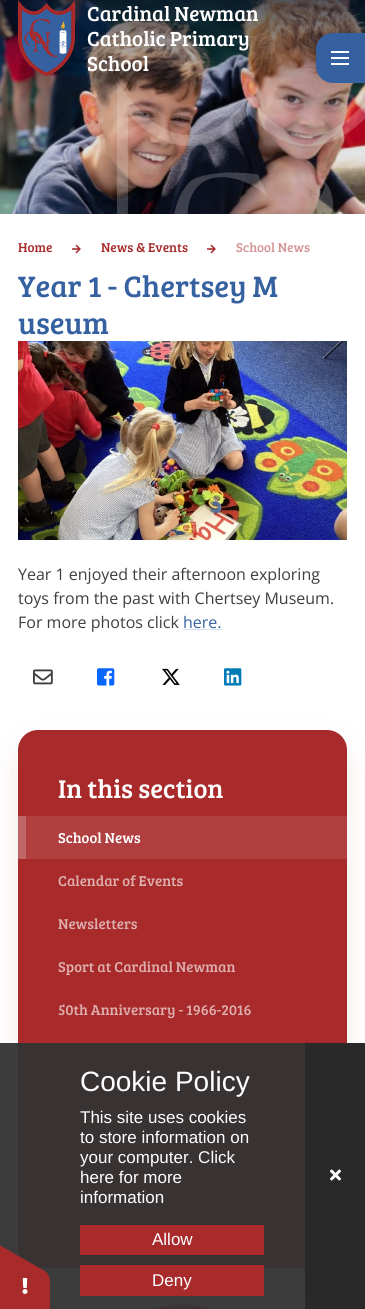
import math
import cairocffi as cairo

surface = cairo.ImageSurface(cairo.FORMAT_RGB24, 365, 1309)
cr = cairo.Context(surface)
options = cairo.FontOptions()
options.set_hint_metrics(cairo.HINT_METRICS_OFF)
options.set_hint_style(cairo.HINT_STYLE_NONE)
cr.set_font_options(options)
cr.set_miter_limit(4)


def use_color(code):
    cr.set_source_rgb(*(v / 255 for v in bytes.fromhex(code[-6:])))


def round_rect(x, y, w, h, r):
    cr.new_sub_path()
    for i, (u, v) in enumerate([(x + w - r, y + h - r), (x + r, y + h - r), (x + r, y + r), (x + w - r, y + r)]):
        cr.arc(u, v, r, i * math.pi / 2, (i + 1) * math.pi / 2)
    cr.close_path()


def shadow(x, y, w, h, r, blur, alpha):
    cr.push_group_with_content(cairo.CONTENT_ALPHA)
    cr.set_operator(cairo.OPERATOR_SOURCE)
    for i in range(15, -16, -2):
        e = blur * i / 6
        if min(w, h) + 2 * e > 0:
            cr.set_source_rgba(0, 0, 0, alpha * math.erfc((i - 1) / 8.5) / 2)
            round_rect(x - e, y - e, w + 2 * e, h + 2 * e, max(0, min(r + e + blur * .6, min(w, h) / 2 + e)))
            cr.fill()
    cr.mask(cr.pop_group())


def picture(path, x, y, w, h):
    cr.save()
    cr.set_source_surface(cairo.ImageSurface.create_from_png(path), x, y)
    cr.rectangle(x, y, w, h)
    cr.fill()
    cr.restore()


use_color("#ffffff")
cr.paint()
picture("img1.png", 0, 0, 365, 214)
picture("img2.png", 117, 82, 248, 132)
picture("img3.png", 18, 0, 57, 76)
cr.select_font_face("Bree Serif")
cr.set_font_size(21)
use_color("#ffffff")
cr.move_to(87, 21)
cr.show_text("Cardinal Newman")
cr.move_to(87, 46)
cr.show_text("Catholic Primary")
cr.move_to(87, 71)
cr.show_text("School")
use_color("#3661a1")
cr.new_path()
cr.move_to(333, 33)
cr.line_to(365, 33)
cr.line_to(365, 83)
cr.line_to(333, 83)
cr.curve_to(323.5, 83, 316, 75.5, 316, 66)
cr.line_to(316, 50)
cr.curve_to(316, 40.5, 323.5, 33, 333, 33)
cr.close_path()
cr.fill()
use_color("#ffffff")
cr.rectangle(331, 51, 18, 2)
cr.fill()
cr.rectangle(331, 57, 18, 2)
cr.fill()
cr.rectangle(331, 63, 18, 2)
cr.fill()
cr.set_font_size(13.25)
use_color("#a82a2a")
cr.move_to(18, 252)
cr.show_text("Home")
picture("img4.png", 72, 244, 9, 10)
cr.move_to(101, 252)
cr.show_text("News & Events")
picture("img4.png", 207, 244, 9, 10)
use_color("#d49595")
cr.move_to(236, 252)
cr.show_text("School News")
cr.set_font_size(30.5)
use_color("#3661a1")
cr.move_to(18, 297)
cr.show_text("Year 1 - Chertsey M")
cr.move_to(18, 334)
cr.show_text("useum")
picture("img5.png", 18, 341, 329, 199)
cr.select_font_face("Open Sans")
cr.set_font_size(16)
use_color("#3e3e3e")
cr.move_to(18, 580)
cr.show_text("Year 1 enjoyed their afternoon exploring")
cr.move_to(18, 604)
cr.show_text("toys from the past with Chertsey Museum.")
cr.move_to(18, 628)
cr.show_text("For more photos click")
use_color("#3661a1")
cr.move_to(183, 628)
cr.show_text("here.")
use_color("#d7dfec")
cr.rectangle(183, 629, 39, 1)
cr.fill()
picture("img6.png", 33, 669, 20, 16)
picture("img7.png", 97, 668, 18, 18)
picture("img8.png", 162, 668, 18, 17)
picture("img9.png", 224, 668, 18, 18)
picture("img10.png", 177, 1268, 128, 41)
use_color("#a82a2a")
shadow(18, 746, 329, 538, 20, 16, 0.1)
use_color("#a82a2a")
round_rect(18, 730, 329, 538, 20)
cr.fill()
use_color("#b13f3f")
cr.rectangle(26, 816, 321, 43)
cr.fill()
cr.select_font_face("Bree Serif")
cr.set_font_size(26.5)
use_color("#ffffff")
cr.move_to(58, 798)
cr.show_text("In this section")
use_color("#c06666")
cr.rectangle(18, 816, 8, 43)
cr.fill()
cr.set_font_size(14.8)
use_color("#ffffff")
cr.move_to(58, 843)
cr.show_text("School News")
use_color("#deaeae")
cr.move_to(58, 886)
cr.show_text("Calendar of Events")
cr.move_to(58, 929)
cr.show_text("Newsletters")
cr.move_to(58, 972)
cr.show_text("Sport at Cardinal Newman")
cr.move_to(58, 1015)
cr.show_text("50th Anniversary - 1966-2016")
picture("img11.png", 155, 1304, 55, 5)
cr.set_source_rgba(0.2, 0.2, 0.2, 0.95)
cr.rectangle(0, 1043, 305, 266)
cr.fill()
use_color("#a82a2a")
cr.new_path()
cr.move_to(50, 1282)
cr.line_to(50, 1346)
cr.curve_to(50, 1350, 48, 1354, 46, 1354)
cr.line_to(-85, 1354)
cr.curve_to(-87, 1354, -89, 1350, -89, 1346)
cr.line_to(-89, 1282)
cr.curve_to(-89, 1277, -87, 1274, -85, 1274)
cr.line_to(46, 1274)
cr.curve_to(48, 1274, 50, 1277, 50, 1282)
cr.close_path()
cr.fill()
cr.new_path()
cr.move_to(-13, 1238)
cr.line_to(43, 1270)
cr.curve_to(47, 1272, 49, 1275, 48, 1277)
cr.line_to(-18, 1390)
cr.curve_to(-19, 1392, -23, 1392, -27, 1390)
cr.line_to(-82, 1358)
cr.curve_to(-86, 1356, -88, 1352, -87, 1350)
cr.line_to(-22, 1237)
cr.curve_to(-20, 1235, -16, 1236, -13, 1238)
cr.close_path()
cr.fill()
picture("img12.png", 22, 1278, 6, 16)
cr.select_font_face("Liberation Sans")
cr.set_font_size(28)
use_color("#ffffff")
cr.move_to(80, 1091)
cr.show_text("Cookie Policy")
cr.set_font_size(17)
cr.move_to(80, 1123)
cr.show_text("This site uses cookies")
cr.move_to(80, 1143)
cr.show_text("to store information on")
cr.move_to(80, 1163)
cr.show_text("your computer. Click")
cr.move_to(80, 1183)
cr.show_text("here for more")
cr.move_to(80, 1203)
cr.show_text("information")
use_color("#a82a2a")
cr.rectangle(80, 1225, 184, 30)
cr.fill()
use_color("#ffffff")
cr.move_to(152, 1245)
cr.show_text("Allow")
use_color("#a82a2a")
cr.rectangle(80, 1265, 184, 31)
cr.fill()
use_color("#ffffff")
cr.move_to(152, 1286)
cr.show_text("Deny")
use_color("#292929")
cr.rectangle(305, 1043, 60, 266)
cr.fill()
picture("img13.png", 330, 1169, 11, 12)
surface.write_to_png("result.png")
